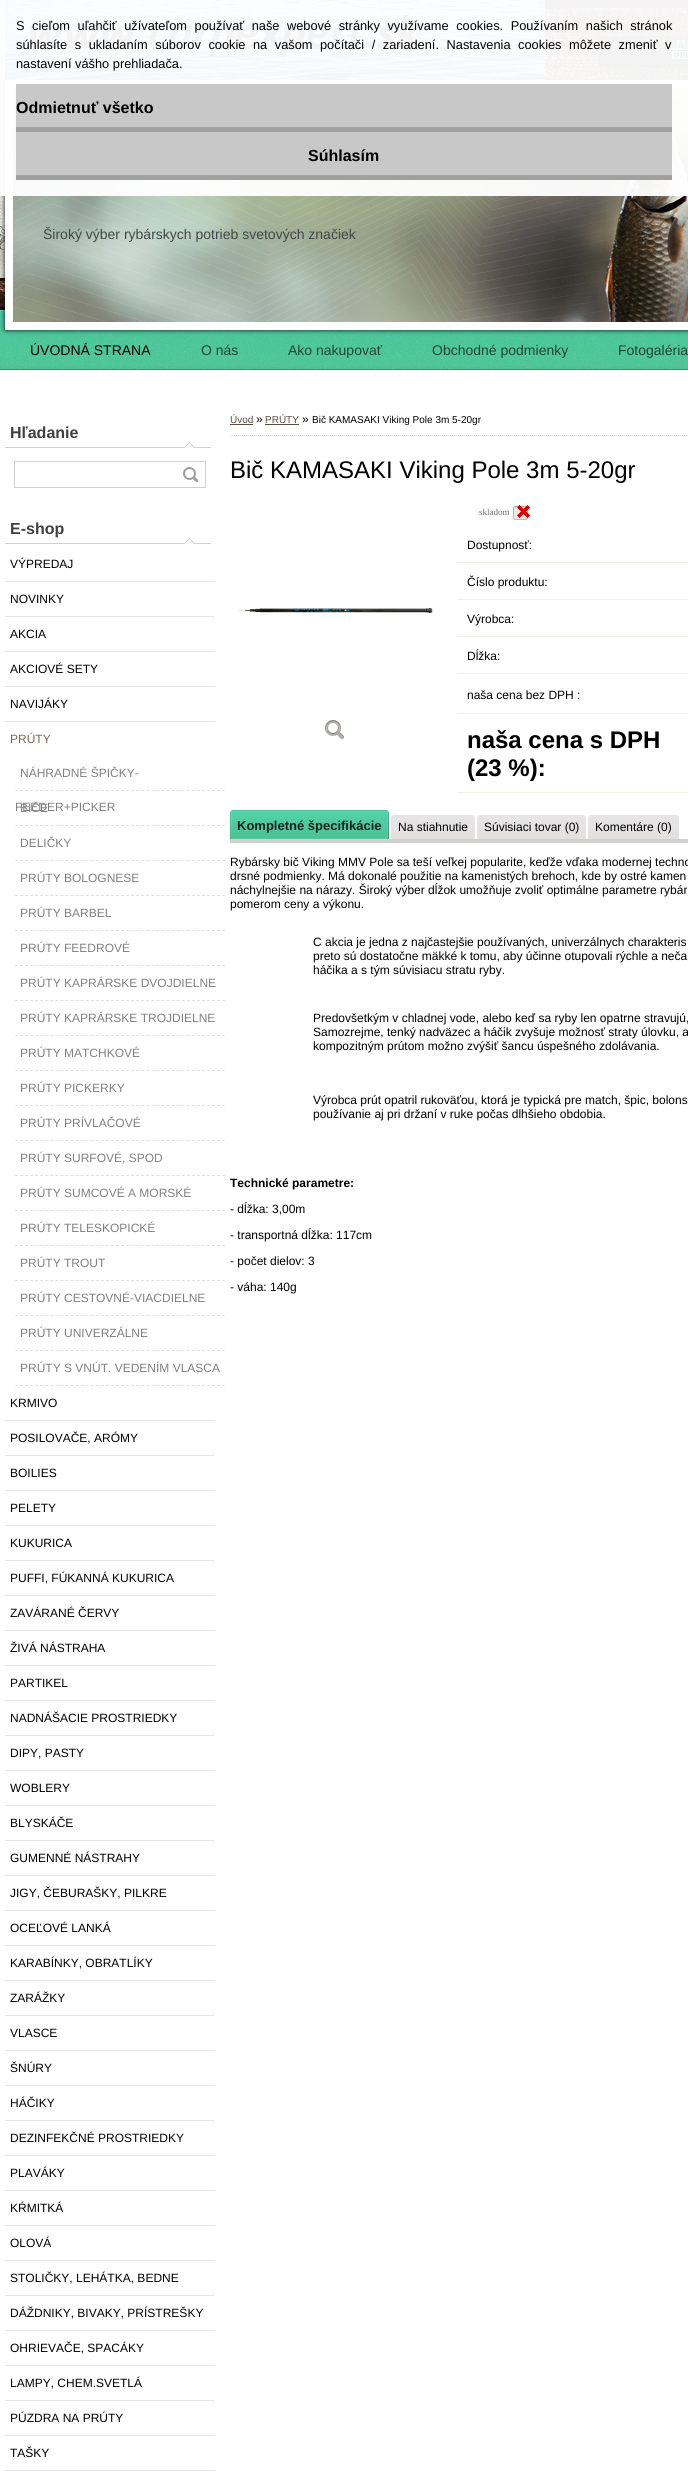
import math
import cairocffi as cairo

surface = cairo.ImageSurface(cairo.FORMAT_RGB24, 688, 2487)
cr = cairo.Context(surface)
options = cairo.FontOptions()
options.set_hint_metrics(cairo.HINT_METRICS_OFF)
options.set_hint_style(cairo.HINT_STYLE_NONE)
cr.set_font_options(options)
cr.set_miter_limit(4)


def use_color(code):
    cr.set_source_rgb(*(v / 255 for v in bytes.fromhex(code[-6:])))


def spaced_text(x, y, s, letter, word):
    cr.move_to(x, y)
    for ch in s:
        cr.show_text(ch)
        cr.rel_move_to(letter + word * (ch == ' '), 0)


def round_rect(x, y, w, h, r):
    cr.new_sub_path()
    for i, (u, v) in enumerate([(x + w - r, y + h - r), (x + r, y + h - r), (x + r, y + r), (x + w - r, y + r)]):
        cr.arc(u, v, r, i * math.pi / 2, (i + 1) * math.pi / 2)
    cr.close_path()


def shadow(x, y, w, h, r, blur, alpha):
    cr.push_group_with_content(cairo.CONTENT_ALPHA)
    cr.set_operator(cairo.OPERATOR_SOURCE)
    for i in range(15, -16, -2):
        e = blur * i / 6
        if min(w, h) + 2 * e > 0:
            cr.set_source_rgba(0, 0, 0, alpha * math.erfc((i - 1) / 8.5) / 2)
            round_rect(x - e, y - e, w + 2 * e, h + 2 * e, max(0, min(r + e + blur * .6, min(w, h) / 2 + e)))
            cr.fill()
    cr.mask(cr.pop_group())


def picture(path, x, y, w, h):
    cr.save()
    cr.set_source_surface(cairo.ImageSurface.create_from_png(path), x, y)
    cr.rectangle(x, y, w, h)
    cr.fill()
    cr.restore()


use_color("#ffffff")
cr.paint()
picture("img1.png", 0, 0, 688, 370)
picture("img2.png", 670, 40, 18, 21)
use_color("#0d0d0c")
shadow(5, 80, 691, 250, 0, 2.5, 1)
picture("img3.png", 13, 88, 675, 234)
cr.rectangle(9, 84, 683, 242)
use_color("#ffffff")
cr.set_line_width(8)
cr.stroke()
picture("img4.png", 5, 0, 540, 80)
cr.set_source_rgba(1, 1, 1, 0.95)
cr.rectangle(0, 0, 688, 196)
cr.fill()
cr.select_font_face("Liberation Sans")
cr.set_font_size(12.8)
use_color("#000000")
spaced_text(16, 30, "S cieľom uľahčiť užívateľom používať naše webové stránky využívame cookies. Používaním našich stránok", 0, 4)
spaced_text(16, 49, "súhlasíte s ukladaním súborov cookie na vašom počítači / zariadení. Nastavenia cookies môžete zmeniť v", 0, 4)
cr.move_to(16, 68)
cr.show_text("nastavení vášho prehliadača.")
use_color("#c8c8c8")
cr.rectangle(16, 84, 656, 43)
cr.fill()
use_color("#a0a0a0")
cr.rectangle(16, 127, 656, 5)
cr.fill()
cr.select_font_face("Liberation Sans", cairo.FONT_SLANT_NORMAL, cairo.FONT_WEIGHT_BOLD)
cr.set_font_size(16)
use_color("#000000")
cr.move_to(16, 113)
cr.show_text("Odmietnuť všetko")
use_color("#c8c8c8")
cr.rectangle(16, 132, 656, 43)
cr.fill()
use_color("#a0a0a0")
cr.rectangle(16, 175, 656, 5)
cr.fill()
use_color("#000000")
cr.move_to(308, 161)
cr.show_text("Súhlasím")
cr.select_font_face("Liberation Sans")
cr.set_font_size(14)
use_color("#414746")
cr.move_to(43, 239)
cr.show_text("Široký výber rybárskych potrieb svetových značiek")
use_color("#000000")
cr.move_to(30, 355)
cr.show_text("ÚVODNÁ STRANA")
use_color("#214537")
cr.move_to(201, 355)
cr.show_text("O nás")
cr.move_to(288, 355)
cr.show_text("Ako nakupovať")
cr.move_to(432, 355)
cr.show_text("Obchodné podmienky")
cr.move_to(618, 355)
cr.show_text("Fotogaléria")
picture("img5.png", 5, 442, 206, 6)
cr.select_font_face("Liberation Sans", cairo.FONT_SLANT_NORMAL, cairo.FONT_WEIGHT_BOLD)
cr.set_font_size(16)
use_color("#404040")
cr.move_to(10, 438)
cr.show_text("Hľadanie")
cr.rectangle(14.5, 461.5, 191, 26)
use_color("#d0d0d0")
cr.set_line_width(1)
cr.stroke()
picture("img6.png", 183, 467, 16, 16)
picture("img5.png", 5, 538, 206, 6)
use_color("#404040")
cr.move_to(10, 534)
cr.show_text("E-shop")
use_color("#e5e5e6")
cr.rectangle(5, 581, 210, 1)
cr.fill()
cr.select_font_face("Liberation Sans")
cr.set_font_size(12)
use_color("#000000")
cr.move_to(10, 568)
cr.show_text("VÝPREDAJ")
use_color("#e5e5e6")
cr.rectangle(5, 616, 210, 1)
cr.fill()
use_color("#000000")
cr.move_to(10, 603)
cr.show_text("NOVINKY")
use_color("#e5e5e6")
cr.rectangle(5, 651, 210, 1)
cr.fill()
use_color("#000000")
cr.move_to(10, 638)
cr.show_text("AKCIA")
use_color("#e5e5e6")
cr.rectangle(5, 686, 210, 1)
cr.fill()
use_color("#000000")
cr.move_to(10, 673)
cr.show_text("AKCIOVÉ SETY")
use_color("#e5e5e6")
cr.rectangle(5, 721, 210, 1)
cr.fill()
use_color("#000000")
cr.move_to(10, 708)
cr.show_text("NAVIJÁKY")
use_color("#85654c")
cr.move_to(10, 743)
cr.show_text("PRÚTY")
cr.new_path()
cr.move_to(15, 790.5)
cr.line_to(225, 790.5)
use_color("#e0dfdd")
cr.set_dash([3, 2.05])
cr.stroke()
use_color("#808080")
cr.move_to(20, 777)
cr.show_text("NÁHRADNÉ ŠPIČKY-")
cr.move_to(15, 811)
cr.show_text("FEEDER+PICKER")
cr.new_path()
cr.move_to(15, 825.5)
cr.line_to(225, 825.5)
use_color("#e0dfdd")
cr.stroke()
use_color("#808080")
cr.move_to(20, 812)
cr.show_text("BIČE")
cr.new_path()
cr.move_to(15, 860.5)
cr.line_to(225, 860.5)
use_color("#e0dfdd")
cr.stroke()
use_color("#808080")
cr.move_to(20, 847)
cr.show_text("DELIČKY")
cr.new_path()
cr.move_to(15, 895.5)
cr.line_to(225, 895.5)
use_color("#e0dfdd")
cr.stroke()
use_color("#808080")
cr.move_to(20, 882)
cr.show_text("PRÚTY BOLOGNESE")
cr.new_path()
cr.move_to(15, 930.5)
cr.line_to(225, 930.5)
use_color("#e0dfdd")
cr.stroke()
use_color("#808080")
cr.move_to(20, 917)
cr.show_text("PRÚTY BARBEL")
cr.new_path()
cr.move_to(15, 965.5)
cr.line_to(225, 965.5)
use_color("#e0dfdd")
cr.stroke()
use_color("#808080")
cr.move_to(20, 952)
cr.show_text("PRÚTY FEEDROVÉ")
cr.new_path()
cr.move_to(15, 1000.5)
cr.line_to(225, 1000.5)
use_color("#e0dfdd")
cr.stroke()
use_color("#808080")
cr.move_to(20, 987)
cr.show_text("PRÚTY KAPRÁRSKE DVOJDIELNE")
cr.new_path()
cr.move_to(15, 1035.5)
cr.line_to(225, 1035.5)
use_color("#e0dfdd")
cr.stroke()
use_color("#808080")
cr.move_to(20, 1022)
cr.show_text("PRÚTY KAPRÁRSKE TROJDIELNE")
cr.new_path()
cr.move_to(15, 1070.5)
cr.line_to(225, 1070.5)
use_color("#e0dfdd")
cr.stroke()
use_color("#808080")
cr.move_to(20, 1057)
cr.show_text("PRÚTY MATCHKOVÉ")
cr.new_path()
cr.move_to(15, 1105.5)
cr.line_to(225, 1105.5)
use_color("#e0dfdd")
cr.stroke()
use_color("#808080")
cr.move_to(20, 1092)
cr.show_text("PRÚTY PICKERKY")
cr.new_path()
cr.move_to(15, 1140.5)
cr.line_to(225, 1140.5)
use_color("#e0dfdd")
cr.stroke()
use_color("#808080")
cr.move_to(20, 1127)
cr.show_text("PRÚTY PRÍVLAČOVÉ")
cr.new_path()
cr.move_to(15, 1175.5)
cr.line_to(225, 1175.5)
use_color("#e0dfdd")
cr.stroke()
use_color("#808080")
cr.move_to(20, 1162)
cr.show_text("PRÚTY SURFOVÉ, SPOD")
cr.new_path()
cr.move_to(15, 1210.5)
cr.line_to(225, 1210.5)
use_color("#e0dfdd")
cr.stroke()
use_color("#808080")
cr.move_to(20, 1197)
cr.show_text("PRÚTY SUMCOVÉ A MORSKÉ")
cr.new_path()
cr.move_to(15, 1245.5)
cr.line_to(225, 1245.5)
use_color("#e0dfdd")
cr.stroke()
use_color("#808080")
cr.move_to(20, 1232)
cr.show_text("PRÚTY TELESKOPICKÉ")
cr.new_path()
cr.move_to(15, 1280.5)
cr.line_to(225, 1280.5)
use_color("#e0dfdd")
cr.stroke()
use_color("#808080")
cr.move_to(20, 1267)
cr.show_text("PRÚTY TROUT")
cr.new_path()
cr.move_to(15, 1315.5)
cr.line_to(225, 1315.5)
use_color("#e0dfdd")
cr.stroke()
use_color("#808080")
cr.move_to(20, 1302)
cr.show_text("PRÚTY CESTOVNÉ-VIACDIELNE")
cr.new_path()
cr.move_to(15, 1350.5)
cr.line_to(225, 1350.5)
use_color("#e0dfdd")
cr.stroke()
use_color("#808080")
cr.move_to(20, 1337)
cr.show_text("PRÚTY UNIVERZÁLNE")
cr.new_path()
cr.move_to(15, 1385.5)
cr.line_to(225, 1385.5)
use_color("#e0dfdd")
cr.stroke()
use_color("#808080")
cr.move_to(20, 1372)
cr.show_text("PRÚTY S VNÚT. VEDENÍM VLASCA")
use_color("#e5e5e6")
cr.rectangle(5, 1420, 210, 1)
cr.fill()
use_color("#000000")
cr.move_to(10, 1407)
cr.show_text("KRMIVO")
use_color("#e5e5e6")
cr.rectangle(5, 1455, 210, 1)
cr.fill()
use_color("#000000")
cr.move_to(10, 1442)
cr.show_text("POSILOVAČE, ARÓMY")
use_color("#e5e5e6")
cr.rectangle(5, 1490, 210, 1)
cr.fill()
use_color("#000000")
cr.move_to(10, 1477)
cr.show_text("BOILIES")
use_color("#e5e5e6")
cr.rectangle(5, 1525, 210, 1)
cr.fill()
use_color("#000000")
cr.move_to(10, 1512)
cr.show_text("PELETY")
use_color("#e5e5e6")
cr.rectangle(5, 1560, 210, 1)
cr.fill()
use_color("#000000")
cr.move_to(10, 1547)
cr.show_text("KUKURICA")
use_color("#e5e5e6")
cr.rectangle(5, 1595, 210, 1)
cr.fill()
use_color("#000000")
cr.move_to(10, 1582)
cr.show_text("PUFFI, FÚKANNÁ KUKURICA")
use_color("#e5e5e6")
cr.rectangle(5, 1630, 210, 1)
cr.fill()
use_color("#000000")
cr.move_to(10, 1617)
cr.show_text("ZAVÁRANÉ ČERVY")
use_color("#e5e5e6")
cr.rectangle(5, 1665, 210, 1)
cr.fill()
use_color("#000000")
cr.move_to(10, 1652)
cr.show_text("ŽIVÁ NÁSTRAHA")
use_color("#e5e5e6")
cr.rectangle(5, 1700, 210, 1)
cr.fill()
use_color("#000000")
cr.move_to(10, 1687)
cr.show_text("PARTIKEL")
use_color("#e5e5e6")
cr.rectangle(5, 1735, 210, 1)
cr.fill()
use_color("#000000")
cr.move_to(10, 1722)
cr.show_text("NADNÁŠACIE PROSTRIEDKY")
use_color("#e5e5e6")
cr.rectangle(5, 1770, 210, 1)
cr.fill()
use_color("#000000")
cr.move_to(10, 1757)
cr.show_text("DIPY, PASTY")
use_color("#e5e5e6")
cr.rectangle(5, 1805, 210, 1)
cr.fill()
use_color("#000000")
cr.move_to(10, 1792)
cr.show_text("WOBLERY")
use_color("#e5e5e6")
cr.rectangle(5, 1840, 210, 1)
cr.fill()
use_color("#000000")
cr.move_to(10, 1827)
cr.show_text("BLYSKÁČE")
use_color("#e5e5e6")
cr.rectangle(5, 1875, 210, 1)
cr.fill()
use_color("#000000")
cr.move_to(10, 1862)
cr.show_text("GUMENNÉ NÁSTRAHY")
use_color("#e5e5e6")
cr.rectangle(5, 1910, 210, 1)
cr.fill()
use_color("#000000")
cr.move_to(10, 1897)
cr.show_text("JIGY, ČEBURAŠKY, PILKRE")
use_color("#e5e5e6")
cr.rectangle(5, 1945, 210, 1)
cr.fill()
use_color("#000000")
cr.move_to(10, 1932)
cr.show_text("OCEĽOVÉ LANKÁ")
use_color("#e5e5e6")
cr.rectangle(5, 1980, 210, 1)
cr.fill()
use_color("#000000")
cr.move_to(10, 1967)
cr.show_text("KARABÍNKY, OBRATLÍKY")
use_color("#e5e5e6")
cr.rectangle(5, 2015, 210, 1)
cr.fill()
use_color("#000000")
cr.move_to(10, 2002)
cr.show_text("ZARÁŽKY")
use_color("#e5e5e6")
cr.rectangle(5, 2050, 210, 1)
cr.fill()
use_color("#000000")
cr.move_to(10, 2037)
cr.show_text("VLASCE")
use_color("#e5e5e6")
cr.rectangle(5, 2085, 210, 1)
cr.fill()
use_color("#000000")
cr.move_to(10, 2072)
cr.show_text("ŠNÚRY")
use_color("#e5e5e6")
cr.rectangle(5, 2120, 210, 1)
cr.fill()
use_color("#000000")
cr.move_to(10, 2107)
cr.show_text("HÁČIKY")
use_color("#e5e5e6")
cr.rectangle(5, 2155, 210, 1)
cr.fill()
use_color("#000000")
cr.move_to(10, 2142)
cr.show_text("DEZINFEKČNÉ PROSTRIEDKY")
use_color("#e5e5e6")
cr.rectangle(5, 2190, 210, 1)
cr.fill()
use_color("#000000")
cr.move_to(10, 2177)
cr.show_text("PLAVÁKY")
use_color("#e5e5e6")
cr.rectangle(5, 2225, 210, 1)
cr.fill()
use_color("#000000")
cr.move_to(10, 2212)
cr.show_text("KŔMITKÁ")
use_color("#e5e5e6")
cr.rectangle(5, 2260, 210, 1)
cr.fill()
use_color("#000000")
cr.move_to(10, 2247)
cr.show_text("OLOVÁ")
use_color("#e5e5e6")
cr.rectangle(5, 2295, 210, 1)
cr.fill()
use_color("#000000")
cr.move_to(10, 2282)
cr.show_text("STOLIČKY, LEHÁTKA, BEDNE")
use_color("#e5e5e6")
cr.rectangle(5, 2330, 210, 1)
cr.fill()
use_color("#000000")
cr.move_to(10, 2317)
cr.show_text("DÁŽDNIKY, BIVAKY, PRÍSTREŠKY")
use_color("#e5e5e6")
cr.rectangle(5, 2365, 210, 1)
cr.fill()
use_color("#000000")
cr.move_to(10, 2352)
cr.show_text("OHRIEVAČE, SPACÁKY")
use_color("#e5e5e6")
cr.rectangle(5, 2400, 210, 1)
cr.fill()
use_color("#000000")
cr.move_to(10, 2387)
cr.show_text("LAMPY, CHEM.SVETLÁ")
use_color("#e5e5e6")
cr.rectangle(5, 2435, 210, 1)
cr.fill()
use_color("#000000")
cr.move_to(10, 2422)
cr.show_text("PÚZDRA NA PRÚTY")
use_color("#e5e5e6")
cr.rectangle(5, 2470, 210, 1)
cr.fill()
use_color("#000000")
cr.move_to(10, 2457)
cr.show_text("TAŠKY")
cr.new_path()
cr.move_to(230, 435.5)
cr.line_to(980, 435.5)
use_color("#d3d5da")
cr.set_dash([1, 1])
cr.stroke()
cr.set_font_size(10)
use_color("#584a47")
cr.move_to(230, 423)
cr.show_text("Úvod")
cr.rectangle(230, 424, 23, 1)
cr.fill()
cr.set_font_size(12)
use_color("#000000")
cr.move_to(256, 423)
cr.show_text("»")
cr.set_font_size(10)
use_color("#584a47")
cr.move_to(265, 423)
cr.show_text("PRÚTY")
cr.rectangle(265, 424, 34, 1)
cr.fill()
cr.set_font_size(12)
use_color("#000000")
cr.move_to(302, 423)
cr.show_text("»")
cr.set_font_size(10)
cr.move_to(312, 423)
cr.show_text("Bič KAMASAKI Viking Pole 3m 5-20gr")
cr.set_font_size(24)
cr.move_to(230, 478)
cr.show_text("Bič KAMASAKI Viking Pole 3m 5-20gr")
picture("img7.png", 238, 608, 195, 5)
picture("img8.png", 325, 720, 19, 20)
picture("img9.png", 513, 505, 17, 15)
cr.select_font_face("Liberation Serif")
cr.set_font_size(9)
use_color("#6a6a6a")
cr.move_to(479, 515)
cr.show_text("skladom")
use_color("#f4eee9")
cr.rectangle(457, 562, 231, 1)
cr.fill()
cr.select_font_face("Liberation Sans")
cr.set_font_size(12)
use_color("#000000")
cr.move_to(467, 549)
cr.show_text("Dostupnosť:")
use_color("#f4eee9")
cr.rectangle(457, 599, 231, 1)
cr.fill()
use_color("#000000")
cr.move_to(467, 586)
cr.show_text("Číslo produktu:")
use_color("#f4eee9")
cr.rectangle(457, 636, 231, 1)
cr.fill()
use_color("#000000")
cr.move_to(467, 623)
cr.show_text("Výrobca:")
use_color("#f4eee9")
cr.rectangle(457, 673, 231, 1)
cr.fill()
use_color("#000000")
cr.move_to(467, 660)
cr.show_text("Dĺžka:")
use_color("#f4eee9")
cr.rectangle(457, 713, 231, 1)
cr.fill()
use_color("#000000")
cr.move_to(467, 699)
cr.show_text("naša cena bez DPH :")
use_color("#f4eee9")
cr.rectangle(457, 792, 231, 1)
cr.fill()
cr.select_font_face("Liberation Sans", cairo.FONT_SLANT_NORMAL, cairo.FONT_WEIGHT_BOLD)
cr.set_font_size(24)
use_color("#000000")
cr.move_to(467, 748)
cr.show_text("naša cena s DPH")
cr.move_to(467, 776)
cr.show_text("(23 %):")
picture("img10.png", 230, 810, 157, 29)
picture("img11.png", 232, 810, 157, 29)
cr.set_font_size(13)
use_color("#0e241c")
cr.move_to(237, 830)
cr.show_text("Kompletné špecifikácie")
picture("img12.png", 391, 815, 82, 24)
picture("img13.png", 473, 815, 2, 24)
cr.select_font_face("Liberation Sans")
cr.set_font_size(12)
use_color("#000000")
cr.move_to(398, 831)
cr.show_text("Na stiahnutie")
picture("img14.png", 477, 815, 107, 24)
picture("img13.png", 584, 815, 2, 24)
cr.move_to(484, 831)
cr.show_text("Súvisiaci tovar (0)")
picture("img15.png", 588, 815, 89, 24)
picture("img16.png", 677, 815, 2, 24)
cr.move_to(595, 831)
cr.show_text("Komentáre (0)")
use_color("#d0d0d0")
cr.rectangle(230, 839, 458, 4)
cr.fill()
use_color("#000000")
cr.move_to(230, 866)
cr.show_text("Rybársky bič Viking MMV Pole sa teší veľkej popularite, keďže vďaka modernej techno")
cr.move_to(230, 880)
cr.show_text("drsné podmienky. Má dokonalé použitie na kamenistých brehoch, kde by ostré kamen")
cr.move_to(230, 894)
cr.show_text("náchylnejšie na nárazy. Široký výber dĺžok umožňuje zvoliť optimálne parametre rybár")
cr.move_to(230, 908)
cr.show_text("pomerom ceny a výkonu.")
cr.move_to(313, 946)
cr.show_text("C akcia je jedna z najčastejšie používaných, univerzálnych charakteris")
cr.move_to(313, 960)
cr.show_text("preto sú dostatočne mäkké k tomu, aby účinne otupovali rýchle a neča")
cr.move_to(313, 974)
cr.show_text("háčika a s tým súvisiacu stratu ryby.")
cr.move_to(313, 1022)
cr.show_text("Predovšetkým v chladnej vode, alebo keď sa ryby len opatrne stravujú,")
cr.move_to(313, 1036)
cr.show_text("Samozrejme, tenký nadväzec a háčik zvyšuje možnosť straty úlovku, a")
cr.move_to(313, 1050)
cr.show_text("kompozitným prútom možno zvýšiť šancu úspešného zdolávania.")
cr.move_to(313, 1104)
cr.show_text("Výrobca prút opatril rukoväťou, ktorá je typická pre match, špic, bolons")
cr.move_to(313, 1118)
cr.show_text("používanie aj pri držaní v ruke počas dlhšieho obdobia.")
cr.select_font_face("Liberation Sans", cairo.FONT_SLANT_NORMAL, cairo.FONT_WEIGHT_BOLD)
cr.move_to(230, 1187)
cr.show_text("Technické parametre:")
cr.select_font_face("Liberation Sans")
cr.move_to(230, 1213)
cr.show_text("- dĺžka: 3,00m")
cr.move_to(230, 1239)
cr.show_text("- transportná dĺžka: 117cm")
cr.move_to(230, 1265)
cr.show_text("- počet dielov: 3")
cr.move_to(230, 1291)
cr.show_text("- váha: 140g")
surface.write_to_png("result.png")
